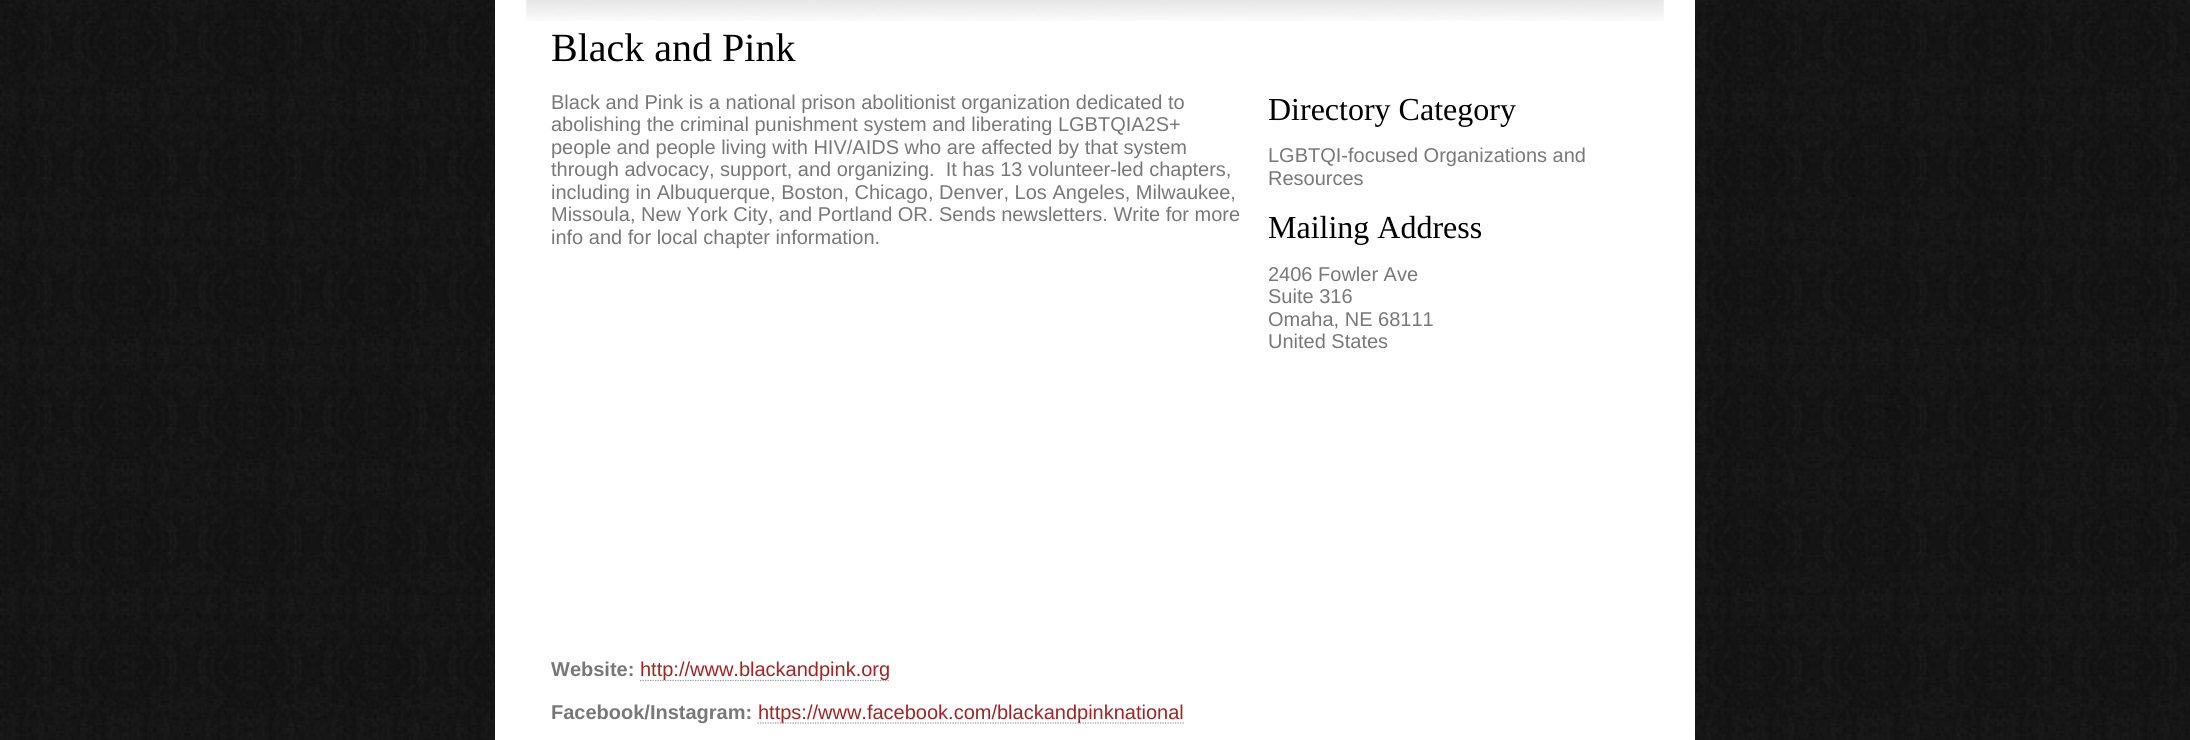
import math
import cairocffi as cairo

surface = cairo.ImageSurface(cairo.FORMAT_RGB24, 2190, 740)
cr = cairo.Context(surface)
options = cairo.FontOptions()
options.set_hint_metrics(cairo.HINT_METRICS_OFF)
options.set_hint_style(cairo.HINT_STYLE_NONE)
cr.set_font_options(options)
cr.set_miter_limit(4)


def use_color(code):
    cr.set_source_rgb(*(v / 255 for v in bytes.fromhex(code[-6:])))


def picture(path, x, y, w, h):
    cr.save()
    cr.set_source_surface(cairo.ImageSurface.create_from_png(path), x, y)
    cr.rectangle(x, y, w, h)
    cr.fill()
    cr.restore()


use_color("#ffffff")
cr.paint()
picture("img1.png", 0, 0, 2190, 740)
use_color("#ffffff")
cr.rectangle(495, 0, 1200, 740)
cr.fill()
picture("img2.png", 526, 0, 1138, 21)
cr.select_font_face("Liberation Serif")
cr.set_font_size(40)
use_color("#000000")
cr.move_to(551, 61)
cr.show_text("Black and Pink")
cr.select_font_face("Liberation Sans")
cr.set_font_size(20)
use_color("#787878")
cr.move_to(551, 109)
cr.show_text("Black and Pink is a national prison abolitionist organization dedicated to")
cr.move_to(551, 131)
cr.show_text("abolishing the criminal punishment system and liberating LGBTQIA2S+")
cr.move_to(551, 154)
cr.show_text("people and people living with HIV/AIDS who are affected by that system")
cr.move_to(551, 176)
cr.show_text("through advocacy, support, and organizing.  It has 13 volunteer-led chapters,")
cr.move_to(551, 199)
cr.show_text("including in Albuquerque, Boston, Chicago, Denver, Los Angeles, Milwaukee,")
cr.move_to(551, 221)
cr.show_text("Missoula, New York City, and Portland OR. Sends newsletters. Write for more")
cr.move_to(551, 244)
cr.show_text("info and for local chapter information.")
cr.select_font_face("Liberation Sans", cairo.FONT_SLANT_NORMAL, cairo.FONT_WEIGHT_BOLD)
cr.move_to(551, 676)
cr.show_text("Website:")
cr.new_path()
cr.move_to(640, 680.5)
cr.line_to(890, 680.5)
use_color("#999999")
cr.set_line_width(1.2)
cr.set_dash([1.25, 1.25])
cr.stroke()
cr.select_font_face("Liberation Sans")
use_color("#a42424")
cr.move_to(640, 676)
cr.show_text("http://www.blackandpink.org")
cr.select_font_face("Liberation Sans", cairo.FONT_SLANT_NORMAL, cairo.FONT_WEIGHT_BOLD)
use_color("#787878")
cr.move_to(551, 719)
cr.show_text("Facebook/Instagram:")
cr.new_path()
cr.move_to(757.5, 723)
cr.line_to(1184, 723)
use_color("#999999")
cr.stroke()
cr.select_font_face("Liberation Sans")
use_color("#a42424")
cr.move_to(758, 719)
cr.show_text("https://www.facebook.com/blackandpinknational")
cr.select_font_face("Liberation Serif")
cr.set_font_size(32)
use_color("#000000")
cr.move_to(1268, 120)
cr.show_text("Directory Category")
cr.select_font_face("Liberation Sans")
cr.set_font_size(20)
use_color("#787878")
cr.move_to(1268, 162)
cr.show_text("LGBTQI-focused Organizations and")
cr.move_to(1268, 185)
cr.show_text("Resources")
cr.select_font_face("Liberation Serif")
cr.set_font_size(32)
use_color("#000000")
cr.move_to(1268, 238)
cr.show_text("Mailing Address")
cr.select_font_face("Liberation Sans")
cr.set_font_size(20)
use_color("#787878")
cr.move_to(1268, 281)
cr.show_text("2406 Fowler Ave")
cr.move_to(1268, 303)
cr.show_text("Suite 316")
cr.move_to(1268, 326)
cr.show_text("Omaha, NE 68111")
cr.move_to(1268, 348)
cr.show_text("United States")
surface.write_to_png("result.png")
